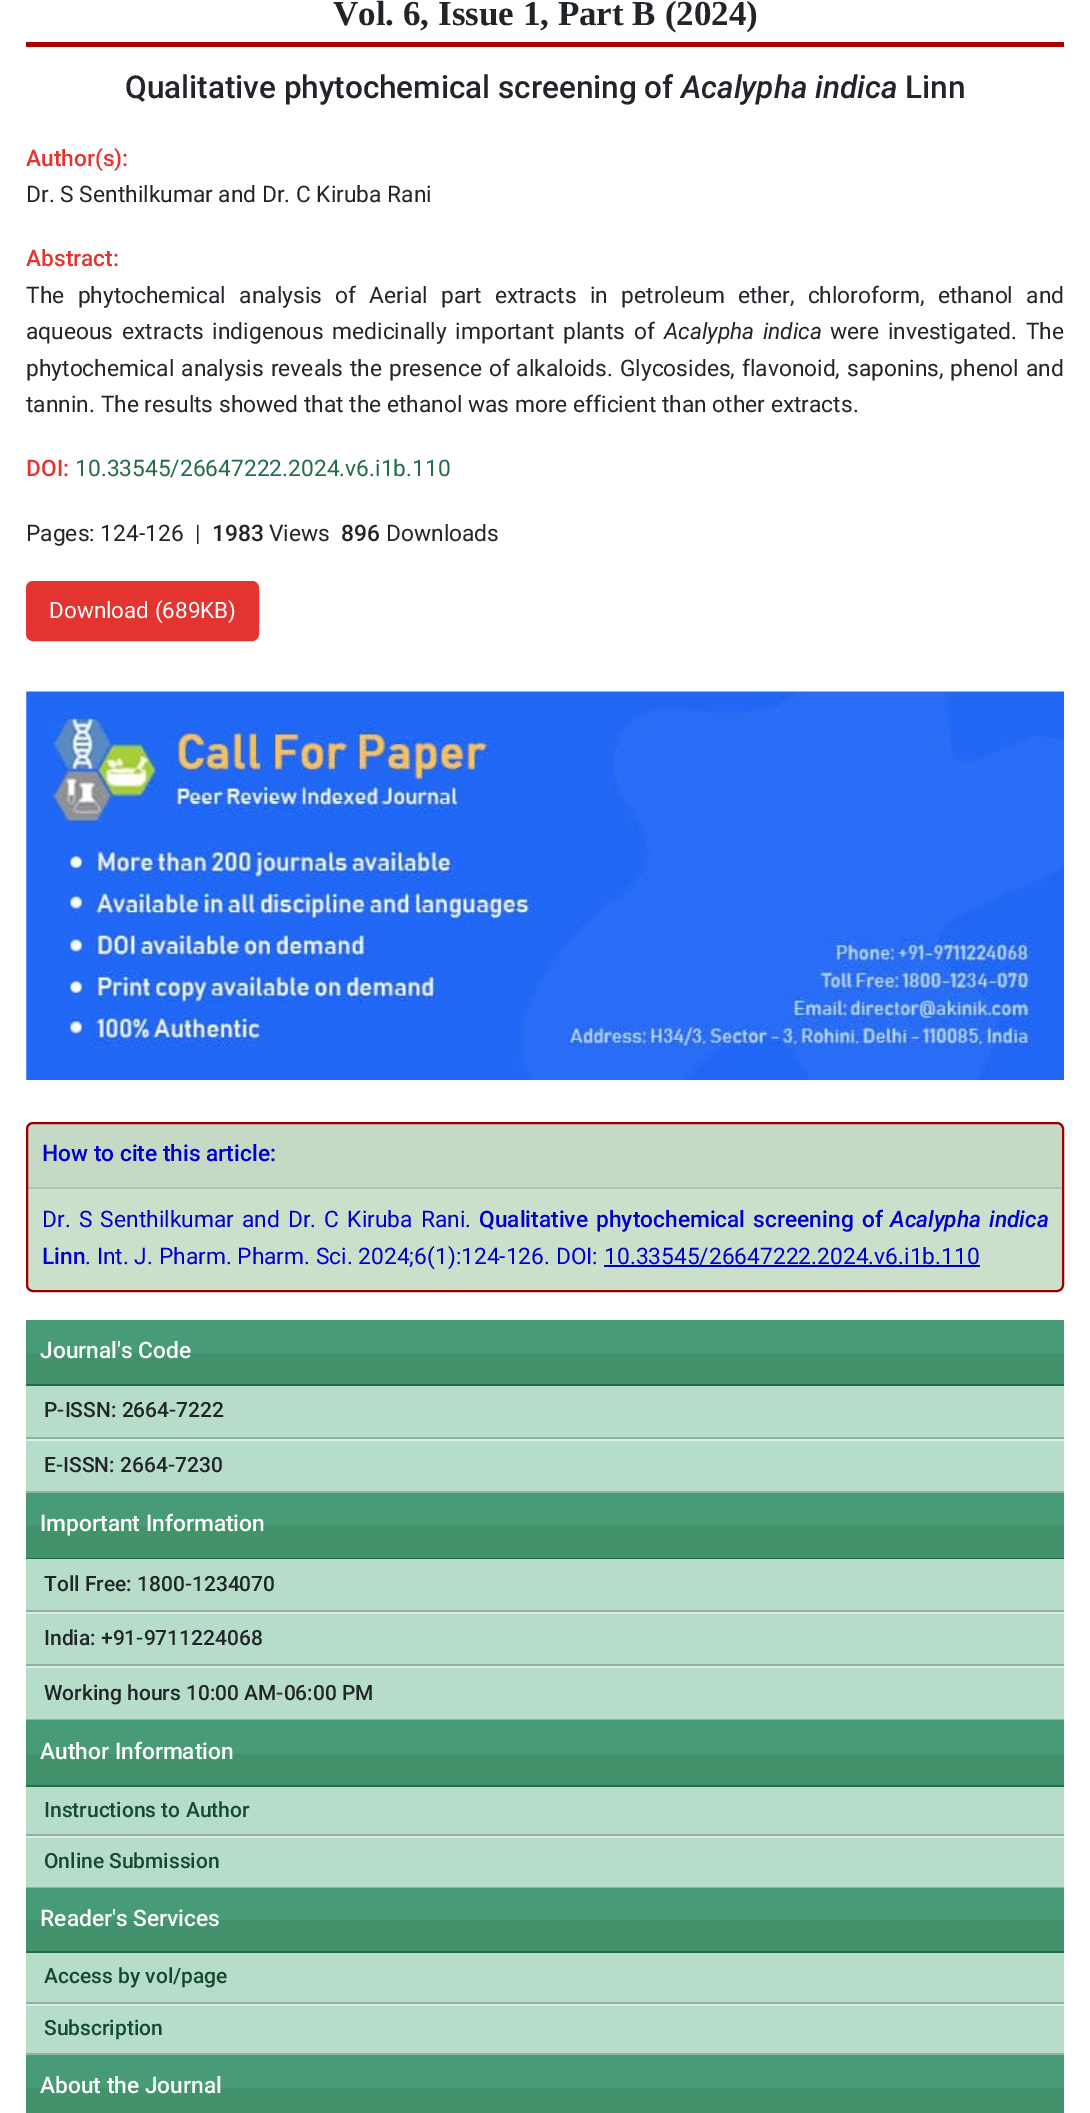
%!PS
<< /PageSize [1090 2113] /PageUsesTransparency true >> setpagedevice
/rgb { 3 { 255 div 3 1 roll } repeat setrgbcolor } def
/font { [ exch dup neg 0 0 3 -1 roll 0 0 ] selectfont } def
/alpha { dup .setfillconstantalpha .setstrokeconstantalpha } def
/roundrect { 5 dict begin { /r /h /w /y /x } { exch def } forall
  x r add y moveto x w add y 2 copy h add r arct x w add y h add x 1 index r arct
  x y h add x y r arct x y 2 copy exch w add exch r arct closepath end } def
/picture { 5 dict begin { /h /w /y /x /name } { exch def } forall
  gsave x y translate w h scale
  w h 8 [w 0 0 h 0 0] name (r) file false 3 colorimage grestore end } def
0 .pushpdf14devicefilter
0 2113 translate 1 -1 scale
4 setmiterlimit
255 255 255 rgb
0 0 1090 2113 rectfill
172 1 1 rgb
26 42 1038 5 rectfill
227 52 47 rgb
27 582 231 58 6 roundrect gsave fill grestore
2 setlinewidth
stroke
(img/1.rgb) 26 691 1038 389 picture
203 224 203 rgb
27 1123 1036 168 6 roundrect gsave fill grestore
153 0 0 rgb
stroke
0.03 alpha
[
  [28 1124 1034 64 0 0 0]
] { aload pop rgb rectfill } forall
0.12 alpha
[
  [28 1187 1034 2 0 0 0]
] { aload pop rgb rectfill } forall
1 alpha
[
  [604 1265 376 2 0 0 204]
  [26 1320 1038 33 71 156 117]
  [26 1353 1038 31 66 146 107]
  [26 1384 1038 2 35 108 72]
  [26 1386 1038 105 182 221 202]
  [26 1437 1038 2 146 177 161]
  [26 1439 1038 2 219 238 229]
  [26 1491 1038 2 146 177 161]
  [26 1493 1038 33 71 156 117]
  [26 1526 1038 32 66 146 107]
  [26 1558 1038 1 35 108 72]
  [26 1559 1038 160 182 221 202]
  [26 1610 1038 2 146 177 161]
  [26 1612 1038 2 219 238 229]
  [26 1664 1038 2 146 177 161]
  [26 1666 1038 2 219 238 229]
  [26 1719 1038 1 146 177 161]
  [26 1720 1038 34 71 156 117]
  [26 1754 1038 31 66 146 107]
  [26 1785 1038 2 35 108 72]
  [26 1787 1038 100 182 221 202]
  [26 1834 1038 2 146 177 161]
  [26 1836 1038 2 219 238 229]
  [26 1887 1038 1 146 177 161]
  [26 1888 1038 32 71 156 117]
  [26 1920 1038 31 66 146 107]
  [26 1951 1038 2 35 108 72]
  [26 1953 1038 100 182 221 202]
  [26 2002 1038 2 146 177 161]
  [26 2004 1038 2 219 238 229]
  [26 2053 1038 2 146 177 161]
  [26 2055 1038 33 71 156 117]
  [26 2088 1038 25 66 146 107]
] { aload pop rgb rectfill } forall
/LiberationSerif-Bold 35 font
33 37 41 rgb
333 25 moveto (Vol. 6, Issue 1, Part B \(2024\)) show
/Roboto-Medium 31.5 font
125 98 moveto (Qualitative phytochemical screening of) show
/Roboto-MediumItalic 31.5 font
681 98 moveto (Acalypha indica) show
/Roboto-Medium 31.5 font
905 98 moveto (Linn) show
/Roboto-Medium 22.75 font
227 52 47 rgb
26 166 moveto (Author\(s\):) show
/Roboto-Regular 22.75 font
33 37 41 rgb
26 202 moveto (Dr. S Senthilkumar and Dr. C Kiruba Rani) show
/Roboto-Medium 22.75 font
227 52 47 rgb
26 266 moveto (Abstract:) show
/Roboto-Regular 22.75 font
33 37 41 rgb
26 303 moveto 7.75 0 32 (The phytochemical analysis of Aerial part extracts in petroleum ether, chloroform, ethanol and) widthshow
26 339 moveto 3 0 32 (aqueous extracts indigenous medicinally important plants of) widthshow
/Roboto-Italic 22.75 font
664 339 moveto 3 0 32 (Acalypha indica) widthshow
/Roboto-Regular 22.75 font
830 339 moveto 3 0 32 (were investigated. The) widthshow
26 376 moveto 1.25 0 32 (phytochemical analysis reveals the presence of alkaloids. Glycosides, flavonoid, saponins, phenol and) widthshow
26 412 moveto (tannin. The results showed that the ethanol was more efficient than other extracts.) show
/Roboto-Medium 22.75 font
227 52 47 rgb
26 476 moveto (DOI:) show
/Roboto-Regular 22.75 font
35 108 72 rgb
75 476 moveto (10.33545/26647222.2024.v6.i1b.110) show
33 37 41 rgb
26 541 moveto (Pages: 124-126  |) show
/Roboto-Medium 22.75 font
212 541 moveto (1983) show
/Roboto-Regular 22.75 font
269 541 moveto (Views) show
/Roboto-Medium 22.75 font
341 541 moveto (896) show
/Roboto-Regular 22.75 font
386 541 moveto (Downloads) show
/Roboto-Regular 22.5 font
255 255 255 rgb
49 618 moveto (Download \(689KB\)) show
/Roboto-Medium 22.75 font
0 0 204 rgb
42 1161 moveto (How to cite this article:) show
/Roboto-Regular 22.75 font
42 1227 moveto 2.5 0 32 (Dr. S Senthilkumar and Dr. C Kiruba Rani.) widthshow
/Roboto-Medium 22.75 font
479 1227 moveto 2.5 0 32 (Qualitative phytochemical screening of) widthshow
/Roboto-MediumItalic 22.75 font
890 1227 moveto 2.5 0 32 (Acalypha indica) widthshow
/Roboto-Medium 22.75 font
42 1264 moveto (Linn) show
/Roboto-Regular 22.75 font
85 1264 moveto (. Int. J. Pharm. Pharm. Sci. 2024;6\(1\):124-126. DOI:) show
604 1264 moveto (10.33545/26647222.2024.v6.i1b.110) show
/Roboto-Medium 22.75 font
255 255 255 rgb
40 1358 moveto (Journal's Code) show
/Roboto-Medium 21 font
33 37 41 rgb
44 1417 moveto (P-ISSN: 2664-7222) show
44 1472 moveto (E-ISSN: 2664-7230) show
/Roboto-Medium 22.75 font
255 255 255 rgb
40 1531 moveto (Important Information) show
/Roboto-Medium 21 font
33 37 41 rgb
[
  [(Toll Free: 1800-1234070) 44 1591]
  [(India: +91-9711224068) 44 1645]
  [(Working hours 10:00 AM-06:00 PM) 44 1700]
] { aload pop moveto show } forall
/Roboto-Medium 22.75 font
255 255 255 rgb
40 1759 moveto (Author Information) show
/Roboto-Medium 21 font
19 74 47 rgb
44 1817 moveto (Instructions to Author) show
44 1868 moveto (Online Submission) show
/Roboto-Medium 22.75 font
255 255 255 rgb
40 1926 moveto (Reader's Services) show
/Roboto-Medium 21 font
19 74 47 rgb
44 1983 moveto (Access by vol/page) show
44 2035 moveto (Subscription) show
/Roboto-Medium 22.75 font
255 255 255 rgb
40 2093 moveto (About the Journal) show
.poppdf14devicefilter showpage
